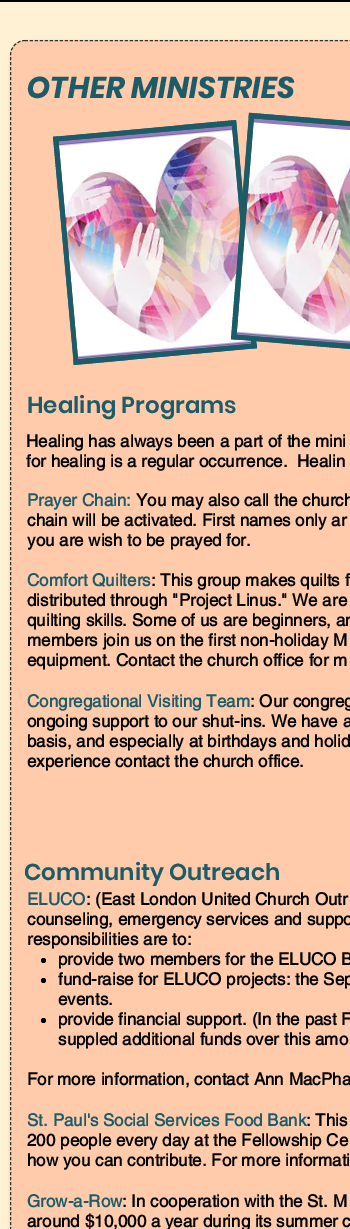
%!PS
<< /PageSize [350 1229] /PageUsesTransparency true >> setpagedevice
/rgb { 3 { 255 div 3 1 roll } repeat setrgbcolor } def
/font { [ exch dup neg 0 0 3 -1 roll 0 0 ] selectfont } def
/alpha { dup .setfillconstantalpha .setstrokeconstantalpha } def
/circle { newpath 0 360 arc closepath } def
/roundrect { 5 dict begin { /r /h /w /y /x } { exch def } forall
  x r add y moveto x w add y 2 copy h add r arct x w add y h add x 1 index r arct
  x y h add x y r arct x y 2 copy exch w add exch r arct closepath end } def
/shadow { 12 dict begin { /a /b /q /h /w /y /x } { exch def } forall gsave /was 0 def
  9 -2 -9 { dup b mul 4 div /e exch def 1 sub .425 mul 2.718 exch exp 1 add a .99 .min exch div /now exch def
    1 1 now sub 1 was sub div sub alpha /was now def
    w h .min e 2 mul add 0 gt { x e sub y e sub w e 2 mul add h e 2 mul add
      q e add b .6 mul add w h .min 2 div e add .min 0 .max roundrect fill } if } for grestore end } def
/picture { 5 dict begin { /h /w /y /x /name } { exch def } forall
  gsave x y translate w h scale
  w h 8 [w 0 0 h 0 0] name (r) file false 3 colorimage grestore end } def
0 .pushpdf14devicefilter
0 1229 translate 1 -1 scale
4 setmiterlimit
255 242 212 rgb
0 0 350 1229 rectfill
0 0 0 rgb
0 0 350 2 rectfill
13 44 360 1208 15 2.5 0.6 shadow
255 203 170 rgb
10 40 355 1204 15 roundrect fill
48 48 48 rgb
[3 2] 0 setdash
25 40.5 moveto 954 40.5 lineto 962 40.5 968.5 47 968.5 55 curveto 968.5 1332 lineto 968.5 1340 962 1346.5 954 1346.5 curveto 25 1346.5 lineto 17 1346.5 10.5 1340 10.5 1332 curveto 10.5 55 lineto 10.5 47 17 40.5 25 40.5 curveto closepath stroke
28 92 105 rgb
53 137 moveto 236 120 lineto 257 348 lineto 74 365 lineto closepath fill
5 setlinewidth
[] 0 setdash
56 139 moveto 234 123 lineto 254 346 lineto 76 362 lineto closepath stroke
(img/1.rgb) 58 125 194 235 picture
249 113 moveto 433 128 lineto 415 354 lineto 231 339 lineto closepath fill
251.5 115.5 moveto 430 130 lineto 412.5 351.5 lineto 234 337 lineto closepath stroke
(img/2.rgb) 236 118 114 226 picture
0 0 0 rgb
43.5 960.5 2.5 circle fill
43.5 980.5 2.5 circle fill
43.5 1020.5 2.5 circle fill
/Poppins-BoldItalic 30 font
28 92 105 rgb
27 98 moveto (OTHER MINISTRIES) show
/Poppins-SemiBold 23 font
27 413 moveto (Healing Programs) show
/helvetica-Bold 17 font
0 0 0 rgb
26 447 moveto (Healing has always been a part of the mini) show
26 467 moveto (for healing is a regular occurrence.  Healin) show
28 92 105 rgb
27 506 moveto (Prayer Chain:) show
0 0 0 rgb
[
  [(You may also call the church) 136 506]
  [(chain will be activated. First names only ar) 27 526]
  [(you are wish to be prayed for.) 27 546]
] { aload pop moveto show } forall
28 92 105 rgb
27 586 moveto (Comfort Quilters) show
0 0 0 rgb
[
  [(: This group makes quilts f) 151 586]
  [(distributed through "Project Linus." We are) 27 606]
  [(quilting skills. Some of us are beginners, an) 27 626]
  [(members join us on the first non-holiday M) 27 646]
  [(equipment. Contact the church office for m) 27 666]
] { aload pop moveto show } forall
28 92 105 rgb
27 707 moveto (Congregational Visiting Team) show
0 0 0 rgb
[
  [(: Our congreg) 250 707]
  [(ongoing support to our shut-ins. We have a) 27 727]
  [(basis, and especially at birthdays and holid) 27 747]
  [(experience contact the church office.) 27 767]
] { aload pop moveto show } forall
/Poppins-SemiBold 23 font
28 92 105 rgb
24 880 moveto (Community Outreach) show
/helvetica-Bold 17 font
27 905 moveto (ELUCO) show
0 0 0 rgb
[
  [(: \(East London United Church Outr) 86 905]
  [(counseling, emergency services and suppo) 27 925]
  [(responsibilities are to:) 27 945]
  [(provide two members for the ELUCO B) 58 965]
  [(fund-raise for ELUCO projects: the Sep) 58 985]
  [(events.) 58 1005]
  [(provide financial support. \(In the past F) 58 1025]
  [(suppled additional funds over this amo) 58 1045]
  [(For more information, contact Ann MacPha) 27 1085]
] { aload pop moveto show } forall
28 92 105 rgb
27 1126 moveto (St. Paul's Social Services Food Bank) show
0 0 0 rgb
[
  [(: This) 306 1126]
  [(200 people every day at the Fellowship Ce) 27 1146]
  [(how you can contribute. For more informati) 27 1166]
] { aload pop moveto show } forall
28 92 105 rgb
27 1207 moveto (Grow-a-Row) show
0 0 0 rgb
122 1207 moveto (: In cooperation with the St. M) show
27 1227 moveto (around $10,000 a year during its summer c) show
.poppdf14devicefilter showpage
